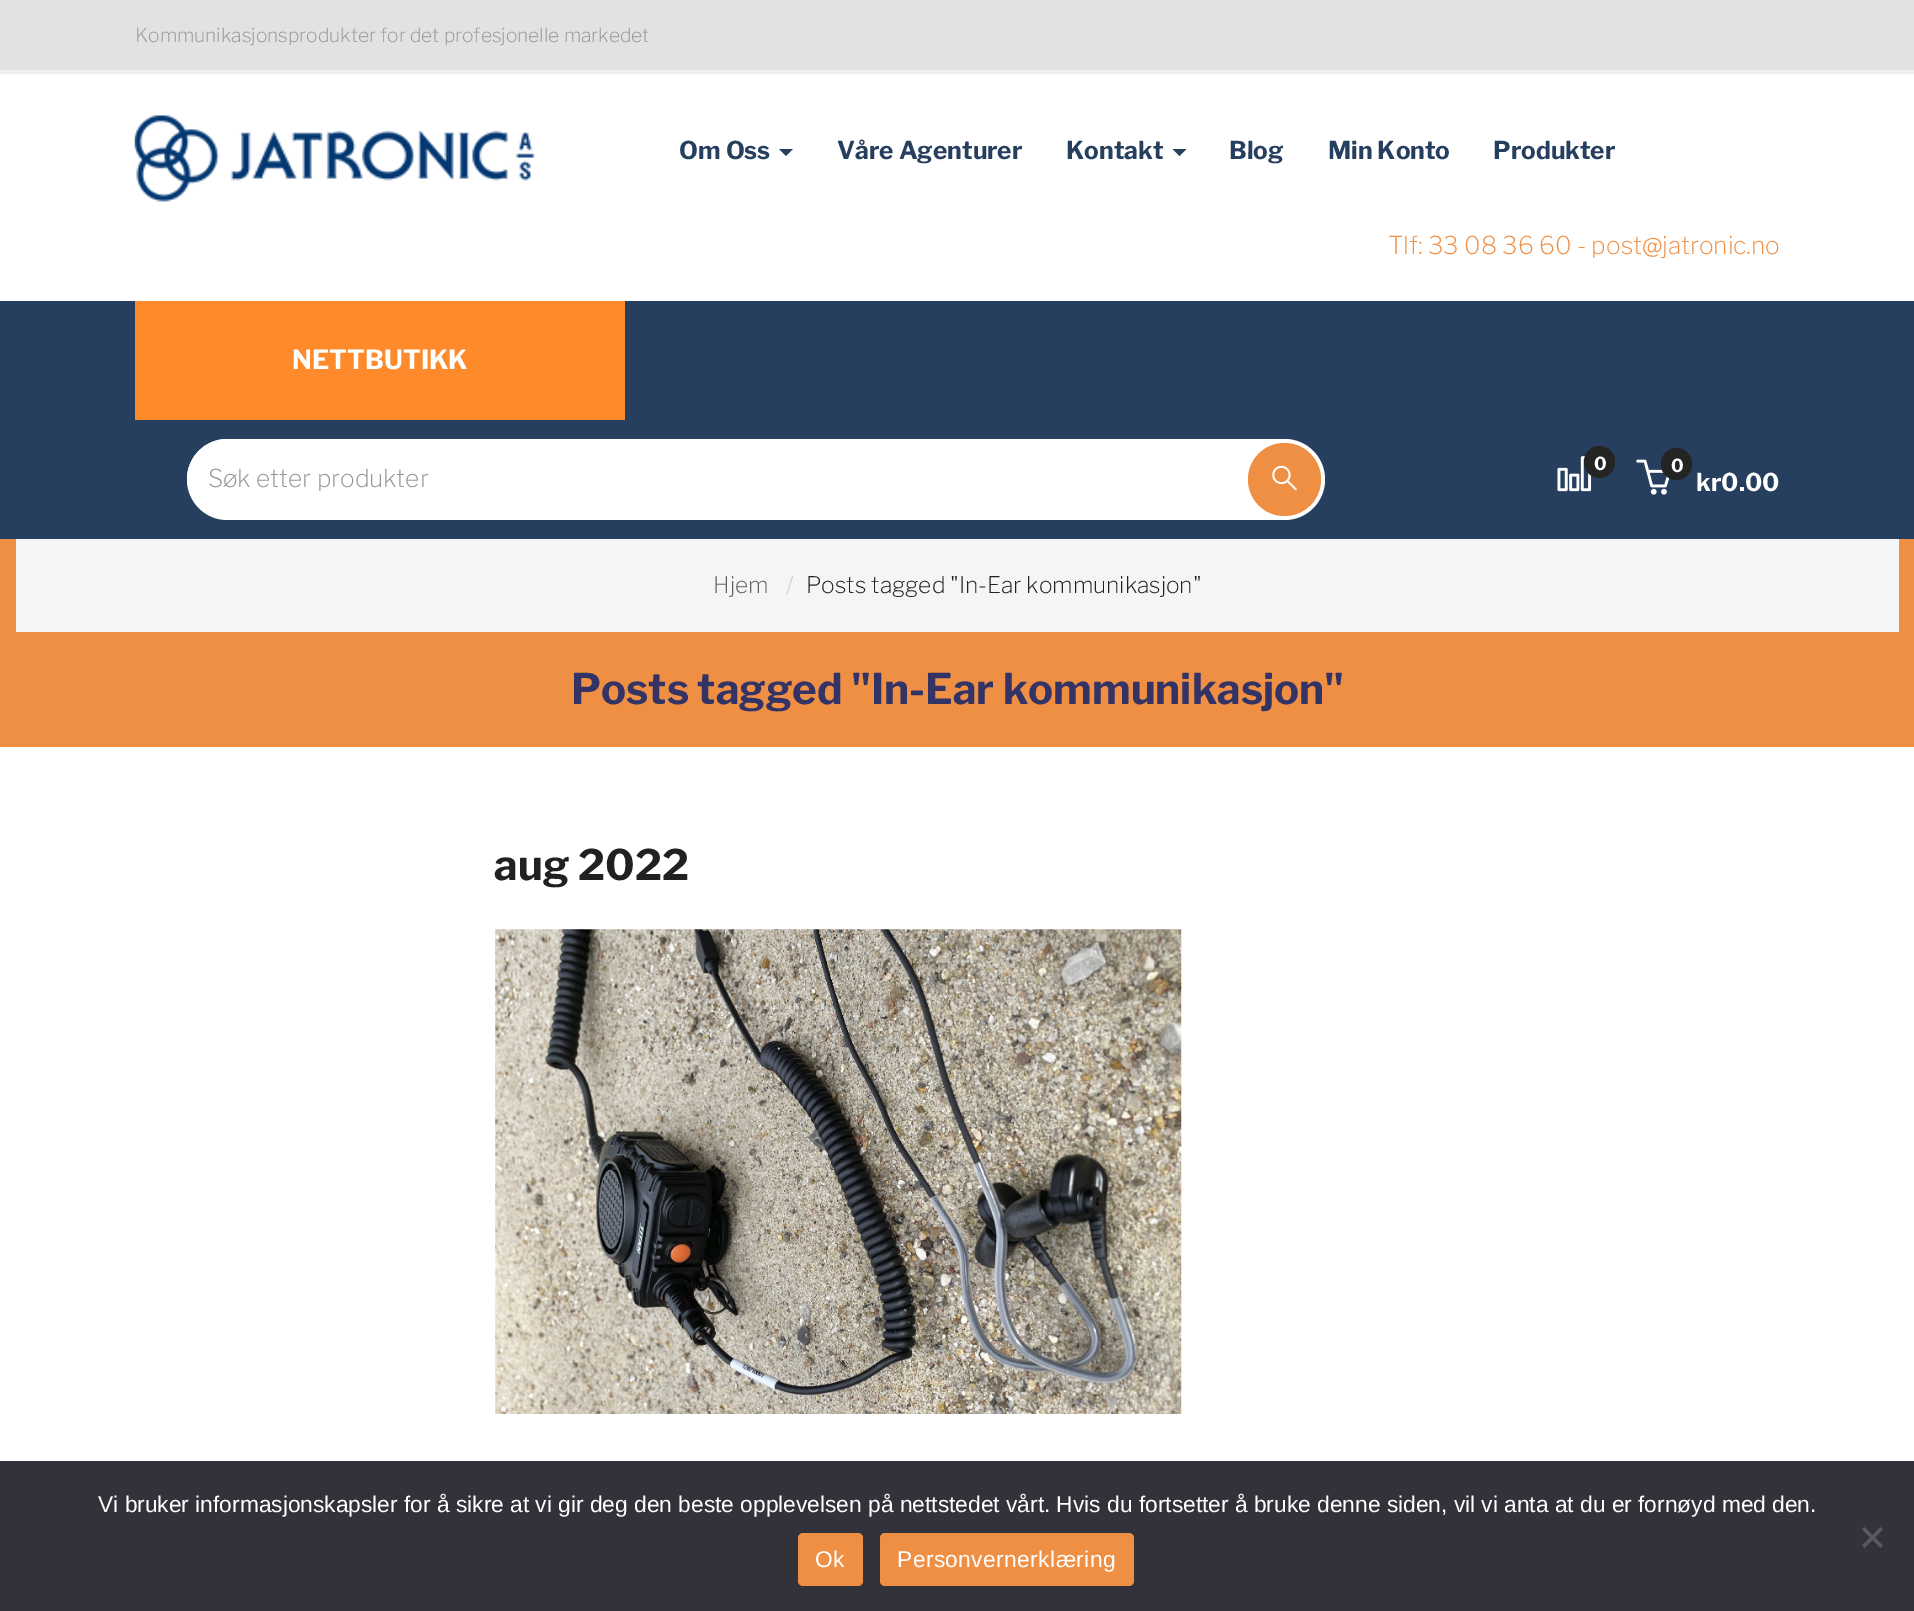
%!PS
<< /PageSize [1914 1611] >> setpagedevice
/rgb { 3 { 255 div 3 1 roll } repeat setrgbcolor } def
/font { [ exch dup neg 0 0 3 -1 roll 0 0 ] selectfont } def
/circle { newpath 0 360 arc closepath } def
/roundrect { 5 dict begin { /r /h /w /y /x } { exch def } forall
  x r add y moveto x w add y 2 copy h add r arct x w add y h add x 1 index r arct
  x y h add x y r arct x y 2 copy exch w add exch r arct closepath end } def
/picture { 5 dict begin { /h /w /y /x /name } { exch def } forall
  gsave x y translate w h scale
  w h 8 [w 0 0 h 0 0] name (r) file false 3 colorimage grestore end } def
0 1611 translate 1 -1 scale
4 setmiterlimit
255 255 255 rgb
0 0 1914 1611 rectfill
226 226 226 rgb
0 0 1914 70 rectfill
238 238 238 rgb
0 70 1914 4 rectfill
(img/1.rgb) 134 115 401 87 picture
39 63 95 rgb
779 149 moveto 793 149 lineto 786 156 lineto closepath fill
1172.5 149 moveto 1186.5 149 lineto 1179.5 156 lineto closepath fill
0 301 1914 238 rectfill
254 138 44 rgb
135 301 490 119 rectfill
255 255 255 rgb
187 439 1138 81 40.5 roundrect fill
gsave
187 439 1138 81 40.5 roundrect clip newpath
227.5 439 moveto 1244 439 lineto 1244 516 lineto 225.5 516 lineto 204 516 187 499 187 477.5 curveto 187 479.5 lineto 187 457 205 439 227.5 439 curveto closepath fill
grestore
239 143 68 rgb
1284.5 479.5 36.5 circle fill
(img/2.rgb) 1272 465 25 26 picture
(img/3.rgb) 1557 456 35 36 picture
36 36 36 rgb
1584 446 31 32 15.5 roundrect fill
(img/4.rgb) 1636 459 34 36 picture
1661 448 31 32 15.5 roundrect fill
239 143 68 rgb
0 539 1914 208 rectfill
245 245 245 rgb
16 539 1883 93 rectfill
(img/5.rgb) 495 929 687 485 picture
50 50 58 rgb
0 1461 1914 150 rectfill
89 89 93 rgb
1880.5 1527 moveto 1883 1529.5 lineto 1864.5 1548 lineto 1862 1545.5 lineto closepath fill
1862 1529.5 moveto 1864.5 1527 lineto 1883 1545.5 lineto 1880.5 1548 lineto closepath fill
239 143 68 rgb
798 1533 65 53 5 roundrect fill
880 1533 254 53 5 roundrect fill
/LibreFranklin-ExtraLight 19.25 font
150 150 150 rgb
135 42 moveto (Kommunikasjonsprodukter for det profesjonelle markedet) show
/LibreFranklin-Bold 24.5 font
39 63 95 rgb
[
  [(Om Oss) 679 159]
  [(Våre Agenturer) 837 159]
  [(Kontakt) 1066 159]
  [(Blog) 1229 159]
  [(Min Konto) 1328 159]
  [(Produkter) 1493 159]
] { aload pop moveto show } forall
/LibreFranklin-ExtraLight 24.5 font
239 143 68 rgb
1388 254 moveto (Tlf: 33 08 36 60 - post@jatronic.no) show
/LibreFranklin-Bold 26.25 font
255 255 255 rgb
292 369 moveto (NETTBUTIKK) show
/LibreFranklin-ExtraLight 24.5 font
150 150 150 rgb
208 487 moveto (Søk etter produkter) show
/LibreFranklin-Bold 18 font
255 255 255 rgb
1594 470 moveto (0) show
1671 472 moveto (0) show
/LibreFranklin-Bold 24.5 font
1696 491 moveto (kr0.00) show
/LibreFranklin-ExtraLight 22.75 font
97 97 97 rgb
713 593 moveto (Hjem) show
204 204 204 rgb
786 593 moveto (/) show
33 33 33 rgb
806 593 moveto (Posts tagged "In-Ear kommunikasjon") show
/LibreFranklin-Bold 42 font
51 51 102 rgb
571 704 moveto (Posts tagged "In-Ear kommunikasjon") show
33 33 33 rgb
494 880 moveto (aug 2022) show
/LiberationSans-Regular 22.75 font
255 255 255 rgb
98 1512 moveto (Vi bruker informasjonskapsler for å sikre at vi gir deg den beste opplevelsen på nettstedet vårt. Hvis du fortsetter å bruke denne siden, vil vi anta at du er fornøyd med den.) show
815 1567 moveto 0.4 0 (Ok) ashow
897 1567 moveto 0.4 0 (Personvernerklæring) ashow
showpage
